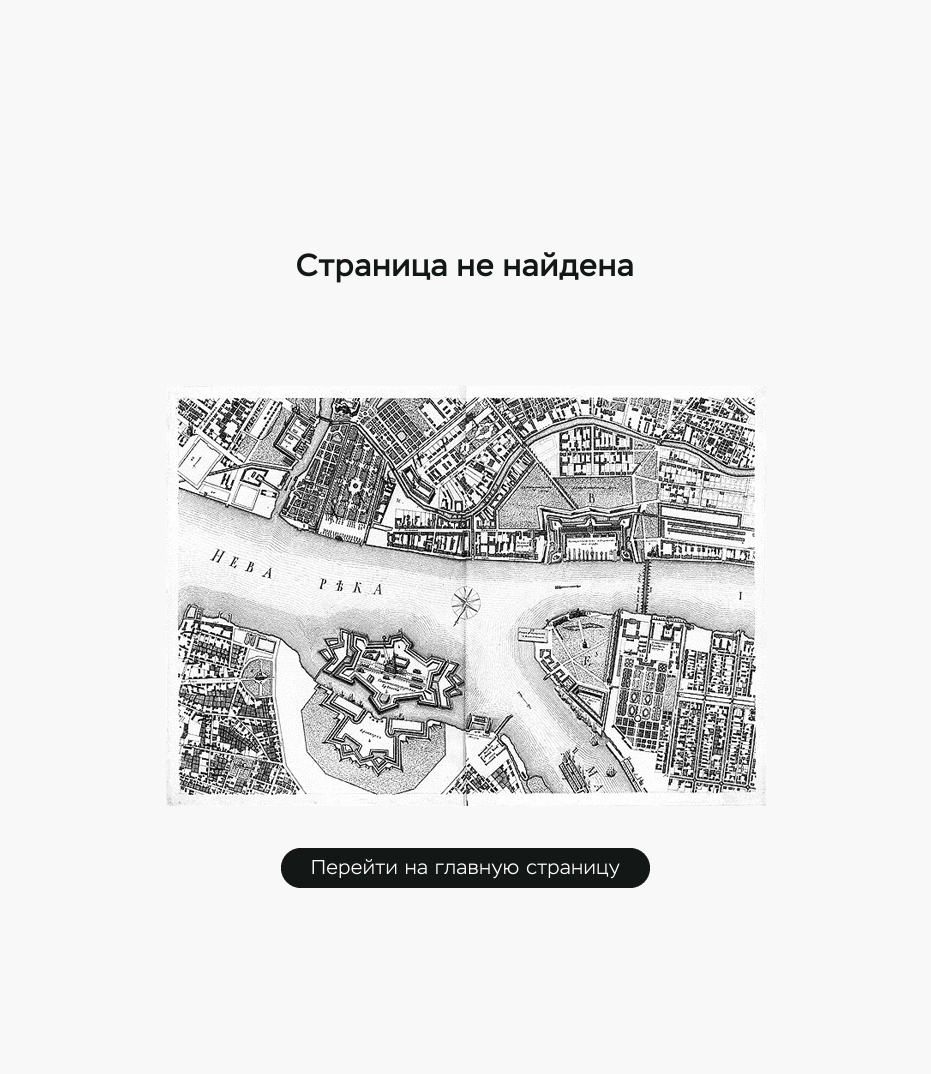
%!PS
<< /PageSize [931 1074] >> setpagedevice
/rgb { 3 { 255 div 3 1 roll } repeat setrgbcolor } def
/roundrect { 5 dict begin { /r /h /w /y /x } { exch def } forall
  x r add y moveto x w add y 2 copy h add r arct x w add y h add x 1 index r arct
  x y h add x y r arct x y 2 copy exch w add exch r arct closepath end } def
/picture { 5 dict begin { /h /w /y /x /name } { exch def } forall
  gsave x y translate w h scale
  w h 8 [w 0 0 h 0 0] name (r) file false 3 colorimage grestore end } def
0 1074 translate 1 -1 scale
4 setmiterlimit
248 248 249 rgb
0 0 931 1074 rectfill
(img/1.rgb) 297 252 336 31 picture
(img/2.rgb) 166 386 600 420 picture
19 24 22 rgb
281 848 369 40 20 roundrect fill
(img/3.rgb) 312 859 308 20 picture
showpage
